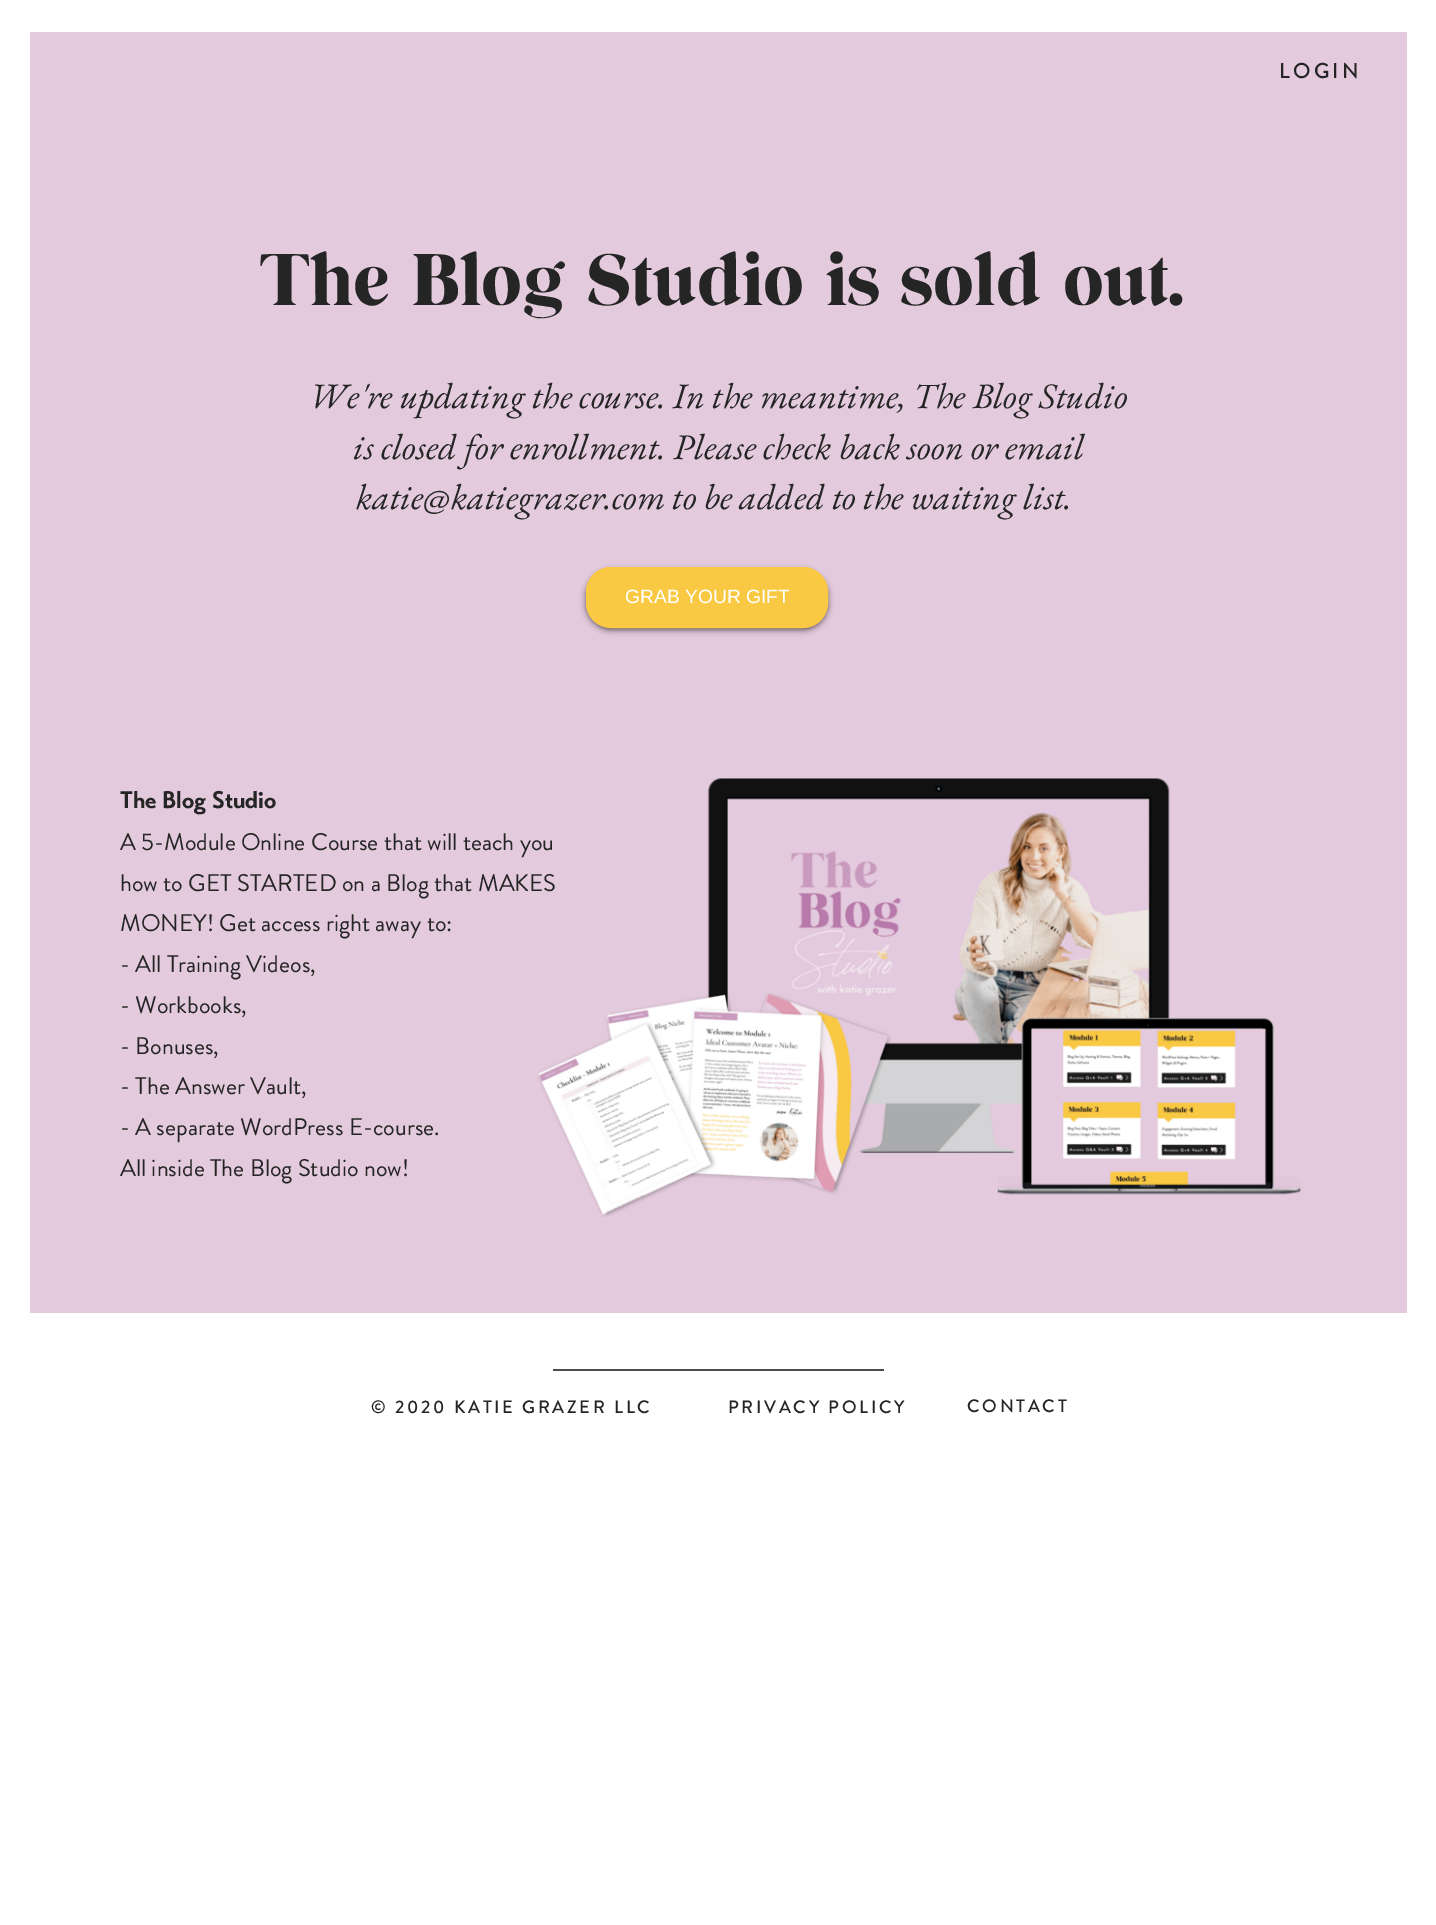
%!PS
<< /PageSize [1436 1925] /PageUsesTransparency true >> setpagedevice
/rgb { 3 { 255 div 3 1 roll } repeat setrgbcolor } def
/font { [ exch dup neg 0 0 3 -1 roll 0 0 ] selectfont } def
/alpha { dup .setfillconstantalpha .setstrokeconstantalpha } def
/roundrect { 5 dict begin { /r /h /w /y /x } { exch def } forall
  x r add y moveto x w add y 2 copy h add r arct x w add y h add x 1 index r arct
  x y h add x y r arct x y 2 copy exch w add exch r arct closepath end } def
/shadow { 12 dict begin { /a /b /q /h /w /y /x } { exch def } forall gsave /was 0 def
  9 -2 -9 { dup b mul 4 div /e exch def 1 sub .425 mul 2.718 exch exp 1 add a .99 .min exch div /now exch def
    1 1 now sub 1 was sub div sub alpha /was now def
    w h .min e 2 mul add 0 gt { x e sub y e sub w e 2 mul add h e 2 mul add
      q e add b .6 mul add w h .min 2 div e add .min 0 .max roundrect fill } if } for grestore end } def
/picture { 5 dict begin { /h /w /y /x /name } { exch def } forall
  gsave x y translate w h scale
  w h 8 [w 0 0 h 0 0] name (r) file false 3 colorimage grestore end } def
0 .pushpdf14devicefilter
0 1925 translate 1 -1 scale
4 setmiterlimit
255 255 255 rgb
0 0 1436 1925 rectfill
227 202 221 rgb
30 32 1377 1281 rectfill
0 0 0 rgb
586 571 242 59 25 3 0.6 shadow
250 201 67 rgb
586.5 567.5 241 60 24.5 roundrect gsave fill grestore
stroke
(img/1.rgb) 537 778 765 439 picture
74 77 79 rgb
553 1369 331 2 rectfill
/BrandonGrotesque-Medium 21.5 font
37 37 37 rgb
1279 78 moveto 3.25 0 (LOGIN) ashow
/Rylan-Regular 71.8 font
260 305 moveto (The Blog Studio is sold out.) show
/EBGaramond-Italic 35.9 font
[
  [(We're updating the course. In the meantime, The Blog Studio) 309 408]
  [(is closed for enrollment. Please check back soon or email) 353 459]
  [(katie@katiegrazer.com to be added to the waiting list.) 356 509]
] { aload pop moveto show } forall
/LiberationSans-Regular 19.25 font
255 255 255 rgb
625 603 moveto (GRAB YOUR GIFT) show
/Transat-Bold 24 font
37 37 37 rgb
120 808 moveto (The Blog Studio) show
/BrandonGrotesque-Regular 24 font
[
  [(A 5-Module Online Course that will teach you) 120 850]
  [(how to GET STARTED on a Blog that MAKES) 120 891]
  [(MONEY! Get access right away to:) 120 931]
  [(- All Training Videos,) 120 972]
  [(- Workbooks,) 120 1013]
  [(- Bonuses,) 120 1054]
  [(- The Answer Vault,) 120 1094]
  [(- A separate WordPress E-course.) 120 1135]
  [(All inside The Blog Studio now!) 120 1176]
] { aload pop moveto show } forall
/BrandonGrotesque-Medium 18 font
371 1413 moveto 2.7 0 (© 2020 KATIE GRAZER LLC) ashow
728 1413 moveto 2.7 0 (PRIVACY POLICY) ashow
967 1412 moveto 2.7 0 (CONTACT) ashow
.poppdf14devicefilter showpage
